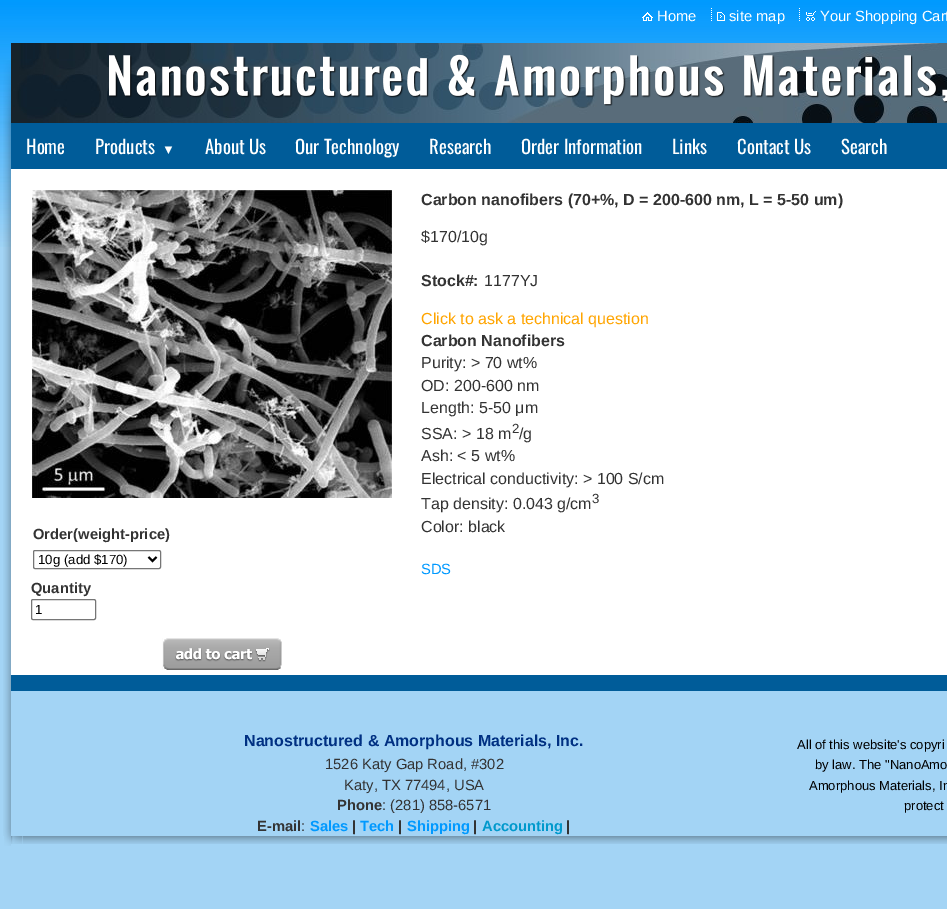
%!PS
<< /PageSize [947 909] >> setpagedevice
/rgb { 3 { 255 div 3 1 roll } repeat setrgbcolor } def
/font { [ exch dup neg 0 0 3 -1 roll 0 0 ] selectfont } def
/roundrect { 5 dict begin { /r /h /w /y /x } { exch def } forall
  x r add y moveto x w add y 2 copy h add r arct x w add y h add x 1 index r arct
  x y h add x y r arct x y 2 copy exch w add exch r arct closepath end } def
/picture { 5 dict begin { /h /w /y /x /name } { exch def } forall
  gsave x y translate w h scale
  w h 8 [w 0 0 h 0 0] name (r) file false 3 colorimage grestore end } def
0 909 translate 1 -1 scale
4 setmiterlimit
163 212 245 rgb
0 0 947 909 rectfill
(img/1.rgb) 0 0 947 247 picture
(img/2.rgb) 642 12 11 9 picture
(img/3.rgb) 711 8 1 13 picture
(img/4.rgb) 717 12 8 9 picture
(img/3.rgb) 799 8 1 13 picture
(img/5.rgb) 806 11 10 10 picture
(img/6.rgb) 3 60 8 63 picture
(img/7.rgb) 11 43 936 80 picture
(img/8.rgb) 109 54 838 52 picture
(img/9.rgb) 3 123 8 552 picture
255 255 255 rgb
11 169 936 506 rectfill
0 92 153 rgb
11 123 936 46 rectfill
(img/10.rgb) 32 190 360 308 picture
118 118 118 rgb
33.5 550.5 127 18 1.5 roundrect stroke
0 0 0 rgb
2 setlinewidth
148.5 557 moveto 152.5 561 lineto 156.5 557 lineto stroke
118 118 118 rgb
1 setlinewidth
31.5 599.5 64 20 1.5 roundrect stroke
(img/11.rgb) 162 638 120 32 picture
(img/12.rgb) 3 675 8 161 picture
0 92 153 rgb
11 675 936 16 rectfill
(img/13.rgb) 4 836 7 10 picture
(img/14.rgb) 11 836 12 8 picture
(img/15.rgb) 23 836 924 8 picture
/LiberationSans-Regular 14.75 font
255 255 255 rgb
[
  [(Home) 657 21]
  [(site map) 729 21]
  [(Your Shopping Cart) 820 21]
] { aload pop moveto show } forall
/Oswald-Regular 18.75 font
26 154 moveto (Home) show
95 154 moveto (Products) show
/LiberationSans-Regular 13 font
162 154 moveto (▼) show
/Oswald-Regular 18.75 font
[
  [(About Us) 205 154]
  [(Our Technology) 295 154]
  [(Research) 429 154]
  [(Order Information) 521 154]
  [(Links) 672 154]
  [(Contact Us) 737 154]
  [(Search) 841 154]
] { aload pop moveto show } forall
/LiberationSans-Bold 14.75 font
51 51 51 rgb
33 539 moveto (Order\(weight-price\)) show
/LiberationSans-Regular 13.25 font
0 0 0 rgb
38 564 moveto (10g \(add $170\)) show
/LiberationSans-Bold 14.75 font
51 51 51 rgb
31 593 moveto (Quantity) show
/LiberationSans-Regular 13.25 font
0 0 0 rgb
35 614 moveto (1) show
/LiberationSans-Bold 16 font
51 51 51 rgb
421 205 moveto (Carbon nanofibers \(70+%, D = 200-600 nm, L = 5-50 um\)) show
/LiberationSans-Regular 16 font
421 242 moveto ($170/10g) show
/LiberationSans-Bold 16 font
421 286 moveto (Stock#:) show
/LiberationSans-Regular 16 font
484 286 moveto (1177YJ) show
255 165 0 rgb
421 324 moveto (Click to ask a technical question) show
/LiberationSans-Bold 16 font
51 51 51 rgb
421 346 moveto (Carbon Nanofibers) show
/LiberationSans-Regular 16 font
[
  [(Purity: > 70 wt%) 421 368]
  [(OD: 200-600 nm) 421 391]
  [(Length: 5-50 μm) 421 413]
  [(SSA: > 18 m) 421 439]
] { aload pop moveto show } forall
/LiberationSans-Regular 13.25 font
512 433 moveto (2) show
/LiberationSans-Regular 16 font
[
  [(/g) 519 439]
  [(Ash: < 5 wt%) 421 461]
  [(Electrical conductivity: > 100 S/cm) 421 484]
  [(Tap density: 0.043 g/cm) 421 509]
] { aload pop moveto show } forall
/LiberationSans-Regular 13.25 font
592 503 moveto (3) show
/LiberationSans-Regular 16 font
421 532 moveto (Color: black) show
/LiberationSans-Regular 14.75 font
0 153 255 rgb
421 574 moveto (SDS) show
/LiberationSans-Bold 16 font
0 48 130 rgb
244 746 moveto (Nanostructured & Amorphous Materials, Inc.) show
/LiberationSans-Regular 14.75 font
51 51 51 rgb
325 769 moveto (1526 Katy Gap Road, #302) show
344 790 moveto (Katy, TX 77494, USA) show
/LiberationSans-Bold 14.75 font
337 810 moveto (Phone) show
/LiberationSans-Regular 14.75 font
382 810 moveto (: \(281\) 858-6571) show
/LiberationSans-Bold 14.75 font
257 831 moveto (E-mail) show
/LiberationSans-Regular 14.75 font
301 831 moveto (:) show
/LiberationSans-Bold 14.75 font
0 153 255 rgb
310 831 moveto (Sales) show
51 51 51 rgb
352 831 moveto (|) show
0 153 255 rgb
360 831 moveto (Tech) show
51 51 51 rgb
398 831 moveto (|) show
0 153 255 rgb
407 831 moveto (Shipping) show
51 51 51 rgb
473 831 moveto (|) show
0 153 204 rgb
482 831 moveto (Accounting) show
51 51 51 rgb
566 831 moveto (|) show
/LiberationSans-Regular 13 font
0 0 0 rgb
[
  [(All of this website's copyri) 797 749]
  [(by law. The "NanoAmo) 815 769]
  [(Amorphous Materials, In) 809 790]
  [(protect) 904 810]
] { aload pop moveto show } forall
showpage
